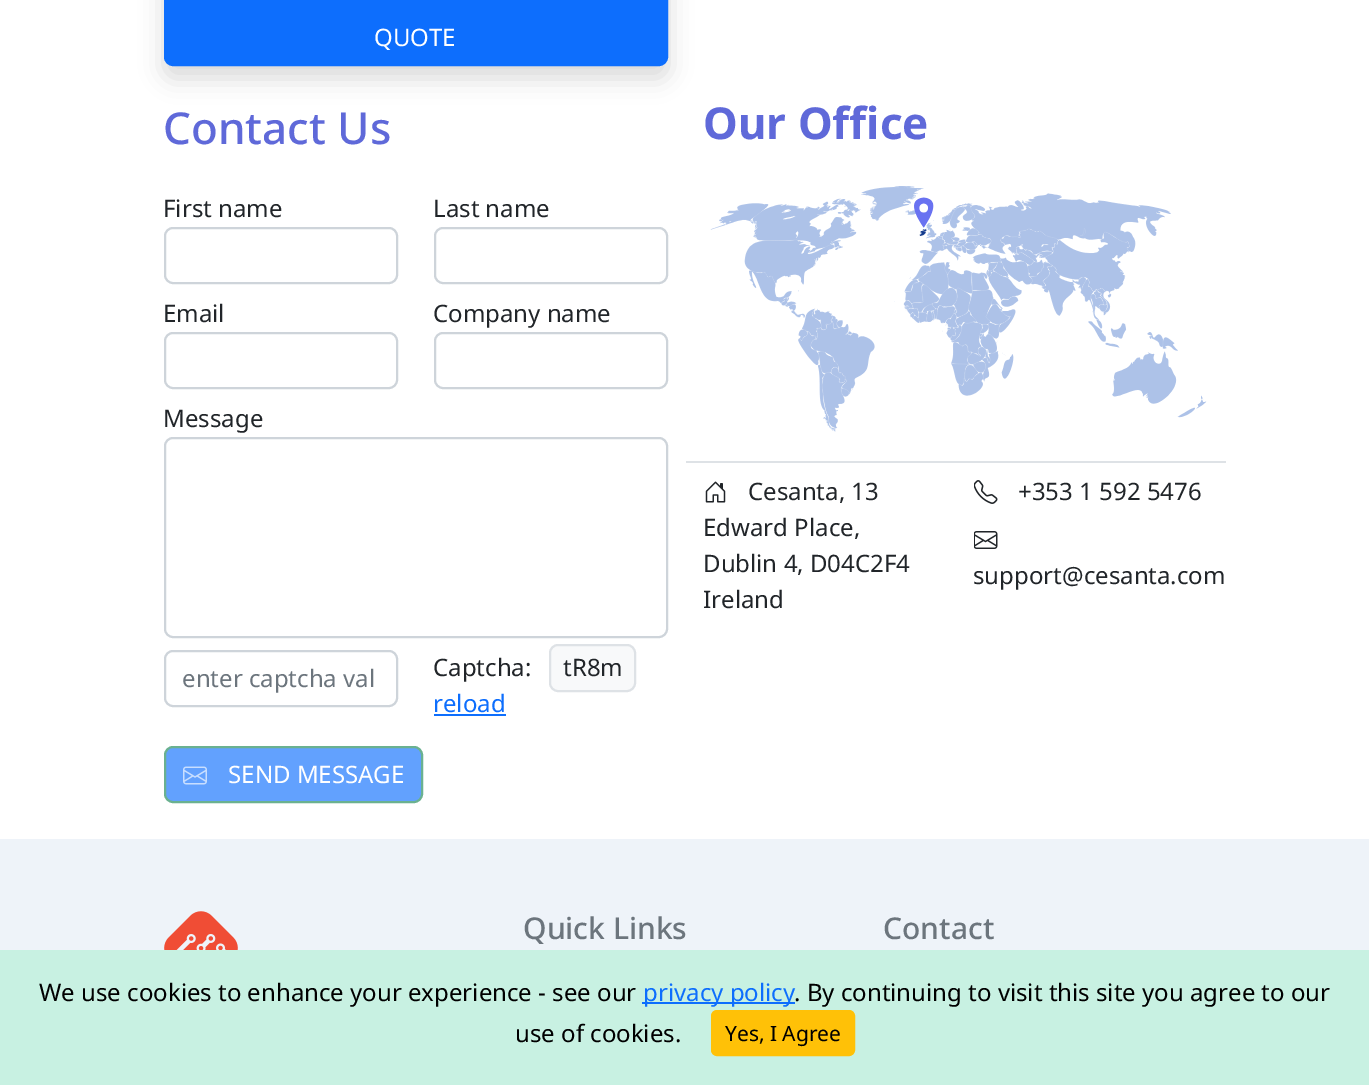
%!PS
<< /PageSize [1369 1085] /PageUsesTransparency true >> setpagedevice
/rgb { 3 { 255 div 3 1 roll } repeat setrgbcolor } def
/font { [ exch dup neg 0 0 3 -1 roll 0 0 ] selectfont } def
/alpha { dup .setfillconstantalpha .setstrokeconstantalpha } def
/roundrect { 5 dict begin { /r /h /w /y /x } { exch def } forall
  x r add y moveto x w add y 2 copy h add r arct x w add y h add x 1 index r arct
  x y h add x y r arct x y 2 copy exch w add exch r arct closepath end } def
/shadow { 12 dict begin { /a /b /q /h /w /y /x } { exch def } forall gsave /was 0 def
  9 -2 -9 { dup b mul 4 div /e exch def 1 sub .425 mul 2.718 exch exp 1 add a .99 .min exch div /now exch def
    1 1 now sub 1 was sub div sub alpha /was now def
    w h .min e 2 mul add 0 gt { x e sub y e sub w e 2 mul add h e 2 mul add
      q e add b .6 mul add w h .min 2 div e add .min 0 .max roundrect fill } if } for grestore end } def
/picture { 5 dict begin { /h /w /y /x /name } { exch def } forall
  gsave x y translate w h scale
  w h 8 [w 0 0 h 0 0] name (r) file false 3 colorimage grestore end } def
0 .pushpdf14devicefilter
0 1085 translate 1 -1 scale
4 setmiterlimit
255 255 255 rgb
0 0 1369 1085 rectfill
0 0 0 rgb
164 -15 504 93 9 12 0.15 shadow
13 110 253 rgb
165 -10 502 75 8 roundrect gsave fill grestore
2 setlinewidth
stroke
206 212 218 rgb
165 228 232 55 8 roundrect stroke
435 228 232 55 8 roundrect stroke
165 333 232 55 8 roundrect stroke
435 333 232 55 8 roundrect stroke
165 438 502 199 8 roundrect stroke
165 651 232 55 8 roundrect stroke
248 249 250 rgb
550 645 85 46 8 roundrect gsave fill grestore
222 226 230 rgb
stroke
13 110 253 rgb
434 714 72 2 rectfill
98 161 254 rgb
165 747 257 55 8 roundrect gsave fill grestore
106 177 144 rgb
stroke
(img/1.rgb) 183 766 24 19 picture
(img/2.rgb) 710 186 497 246 picture
222 226 230 rgb
686 461 540 2 rectfill
(img/3.rgb) 705 481 21 22 picture
(img/4.rgb) 974 480 24 24 picture
(img/5.rgb) 974 531 24 18 picture
238 243 249 rgb
0 839 1369 111 rectfill
(img/6.rgb) 164 911 74 39 picture
200 241 226 rgb
0 950 1369 135 rectfill
13 110 253 rgb
642 1002 153 2 rectfill
255 193 7 rgb
712 1011 142 44 5 roundrect gsave fill grestore
stroke
/NotoSans-Regular 24 font
255 255 255 rgb
374 46 moveto (QUOTE) show
/NotoSans-Medium 44 font
95 105 217 rgb
163 144 moveto (Contact Us) show
/NotoSans-Regular 24 font
33 37 41 rgb
[
  [(First name) 163 217]
  [(Last name) 433 217]
  [(Email) 163 322]
  [(Company name) 433 322]
  [(Message) 163 427]
] { aload pop moveto show } forall
108 117 125 rgb
182 687 moveto (enter captcha val) show
33 37 41 rgb
433 676 moveto (Captcha:) show
563 676 moveto (tR8m) show
13 110 253 rgb
433 712 moveto (reload) show
255 255 255 rgb
228 783 moveto (SEND MESSAGE) show
/NotoSans-Bold 44 font
95 105 217 rgb
703 139 moveto (Our Office) show
/NotoSans-Regular 24 font
33 37 41 rgb
[
  [(Cesanta, 13) 748 500]
  [(Edward Place,) 703 536]
  [(Dublin 4, D04C2F4) 703 572]
  [(Ireland) 703 608]
  [(+353 1 592 5476) 1018 500]
  [(support@cesanta.com) 973 584]
] { aload pop moveto show } forall
/NotoSans-Medium 30 font
108 117 125 rgb
523 939 moveto (Quick Links) show
883 939 moveto (Contact) show
/NotoSans-Regular 24 font
0 0 0 rgb
39 1001 moveto (We use cookies to enhance your experience - see our) show
13 110 253 rgb
643 1001 moveto (privacy policy) show
0 0 0 rgb
794 1001 moveto (. By continuing to visit this site you agree to our) show
515 1042 moveto (use of cookies.) show
/NotoSans-Regular 21 font
725 1041 moveto (Yes, I Agree) show
.poppdf14devicefilter showpage
